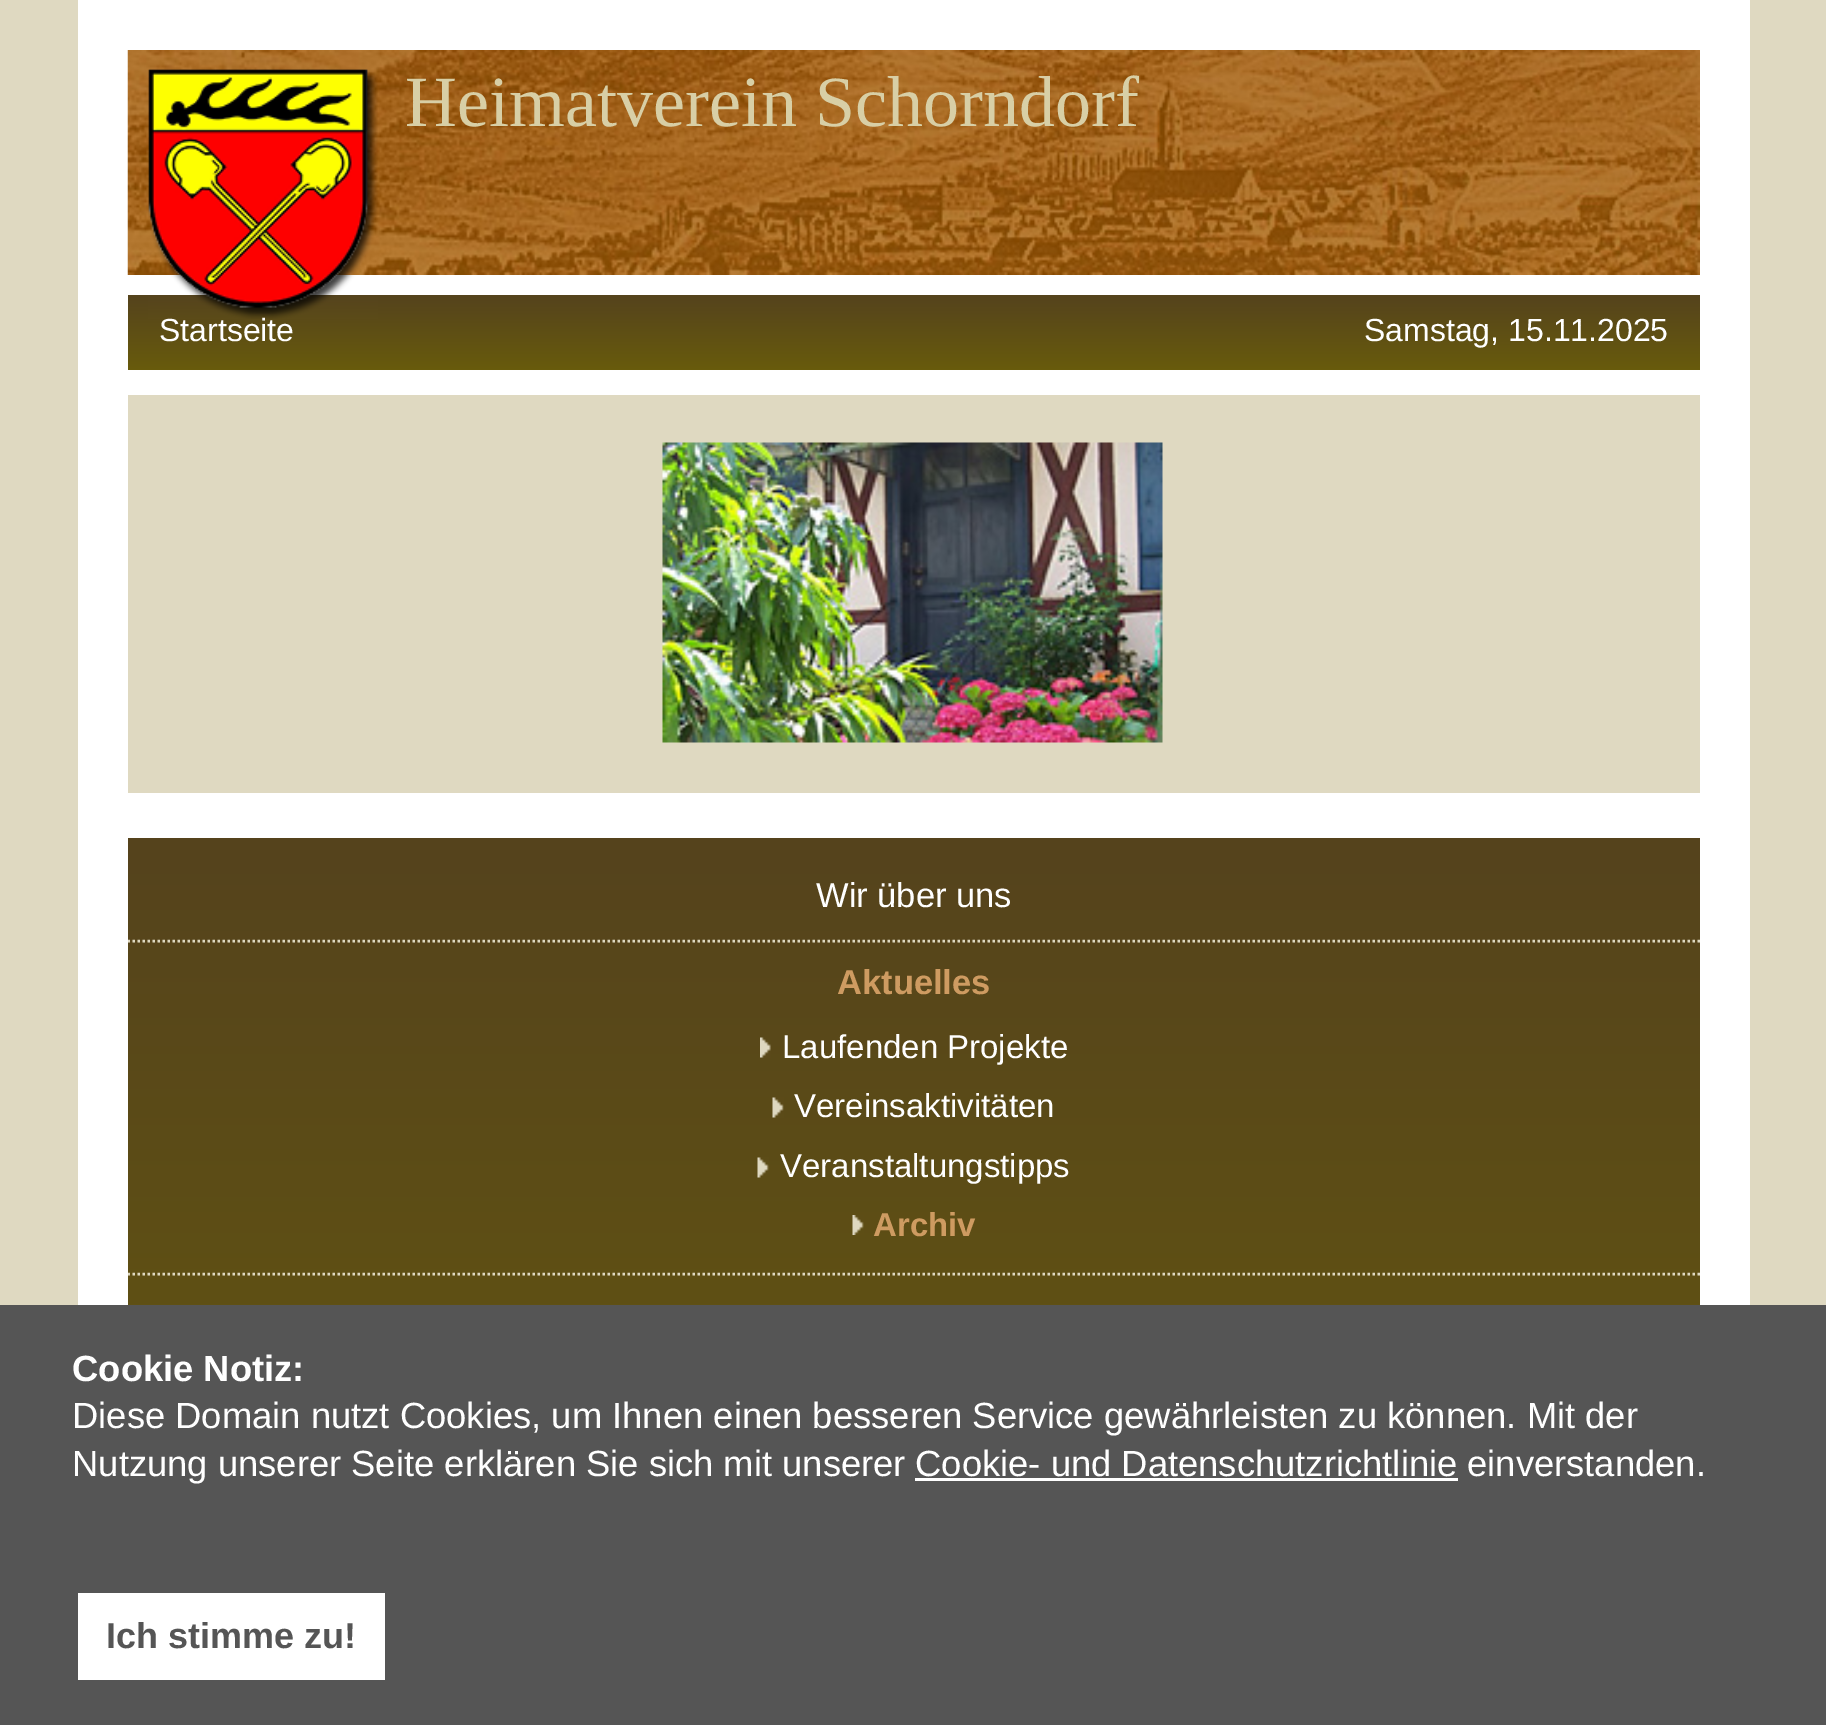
%!PS
<< /PageSize [1826 1725] >> setpagedevice
/rgb { 3 { 255 div 3 1 roll } repeat setrgbcolor } def
/font { [ exch dup neg 0 0 3 -1 roll 0 0 ] selectfont } def
/picture { 5 dict begin { /h /w /y /x /name } { exch def } forall
  gsave x y translate w h scale
  w h 8 [w 0 0 h 0 0] name (r) file false 3 colorimage grestore end } def
0 1725 translate 1 -1 scale
4 setmiterlimit
223 217 193 rgb
0 0 1826 1725 rectfill
255 255 255 rgb
78 0 1672 1305 rectfill
(img/1.rgb) 127 50 1573 225 picture
gsave 128 295 moveto 1700 295 lineto 1700 370 lineto 128 370 lineto closepath clip newpath
<< /ShadingType 2 /ColorSpace /DeviceRGB /Coords [914 295 914 370] /Extend [true true] /Function << /FunctionType 2 /Domain [0 1] /C0 [0.333 0.263 0.114] /C1 [0.408 0.357 0.047] /N 1 >> >> shfill grestore
(img/2.rgb) 148 69 230 250 picture
223 217 193 rgb
128 395 1572 398 rectfill
(img/3.rgb) 662 442 501 301 picture
gsave 128 838 moveto 1700 838 lineto 1700 1305 lineto 128 1305 lineto closepath clip newpath
<< /ShadingType 2 /ColorSpace /DeviceRGB /Coords [914 838 914 1720] /Extend [true true] /Function << /FunctionType 2 /Domain [0 1] /C0 [0.333 0.263 0.114] /C1 [0.408 0.357 0.047] /N 1 >> >> shfill grestore
gsave
128 50 1572 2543 rectclip
2.5 setlinewidth
[2.5 2.5] 0 setdash
127.5 941 moveto 1700 941 lineto stroke
127.5 1274 moveto 1700 1274 lineto stroke
grestore
(img/4.rgb) 760 1037 11 21 picture
(img/5.rgb) 772 1097 12 21 picture
(img/6.rgb) 757 1157 12 21 picture
(img/7.rgb) 852 1215 12 20 picture
[
  [0 1305 1826 420 85 85 85]
  [915 1478 543 3 255 255 255]
  [78 1593 307 87 255 255 255]
] { aload pop rgb rectfill } forall
/LiberationSerif-Regular 72 font
216 207 166 rgb
405 126 moveto (Heimatverein Schorndorf) show
/LiberationSans-Regular 32 font
255 255 255 rgb
159 341 moveto (Startseite) show
1364 341 moveto (Samstag, 15.11.2025) show
/LiberationSans-Regular 34.5 font
816 907 moveto (Wir über uns) show
/LiberationSans-Bold 34.5 font
206 155 97 rgb
837 994 moveto (Aktuelles) show
/LiberationSans-Regular 33 font
255 255 255 rgb
[
  [(Laufenden Projekte) 782 1058]
  [(Vereinsaktivitäten) 794 1117]
  [(Veranstaltungstipps) 780 1177]
] { aload pop moveto show } forall
/LiberationSans-Bold 33 font
206 155 97 rgb
873 1236 moveto (Archiv) show
/LiberationSans-Bold 36.4 font
255 255 255 rgb
72 1381 moveto (Cookie Notiz:) show
/LiberationSans-Regular 36.4 font
[
  [(Diese Domain nutzt Cookies, um Ihnen einen besseren Service gewährleisten zu können. Mit der) 72 1428]
  [(Nutzung unserer Seite erklären Sie sich mit unserer) 72 1476]
  [(Cookie- und Datenschutzrichtlinie) 915 1476]
  [(einverstanden.) 1467 1476]
] { aload pop moveto show } forall
/LiberationSans-Bold 36 font
85 85 85 rgb
106 1648 moveto (Ich stimme zu!) show
showpage
